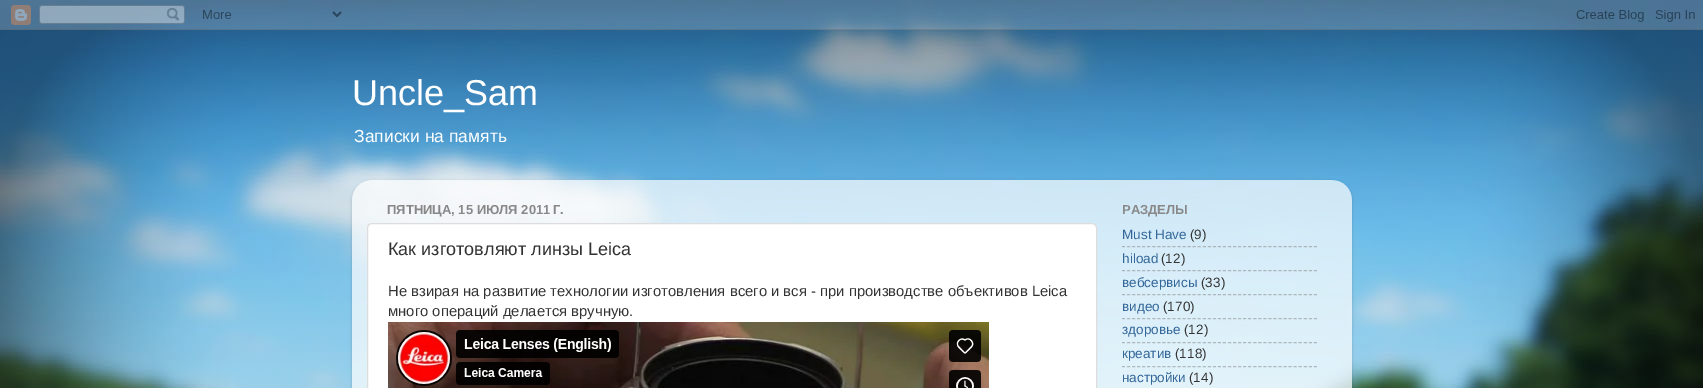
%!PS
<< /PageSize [1703 388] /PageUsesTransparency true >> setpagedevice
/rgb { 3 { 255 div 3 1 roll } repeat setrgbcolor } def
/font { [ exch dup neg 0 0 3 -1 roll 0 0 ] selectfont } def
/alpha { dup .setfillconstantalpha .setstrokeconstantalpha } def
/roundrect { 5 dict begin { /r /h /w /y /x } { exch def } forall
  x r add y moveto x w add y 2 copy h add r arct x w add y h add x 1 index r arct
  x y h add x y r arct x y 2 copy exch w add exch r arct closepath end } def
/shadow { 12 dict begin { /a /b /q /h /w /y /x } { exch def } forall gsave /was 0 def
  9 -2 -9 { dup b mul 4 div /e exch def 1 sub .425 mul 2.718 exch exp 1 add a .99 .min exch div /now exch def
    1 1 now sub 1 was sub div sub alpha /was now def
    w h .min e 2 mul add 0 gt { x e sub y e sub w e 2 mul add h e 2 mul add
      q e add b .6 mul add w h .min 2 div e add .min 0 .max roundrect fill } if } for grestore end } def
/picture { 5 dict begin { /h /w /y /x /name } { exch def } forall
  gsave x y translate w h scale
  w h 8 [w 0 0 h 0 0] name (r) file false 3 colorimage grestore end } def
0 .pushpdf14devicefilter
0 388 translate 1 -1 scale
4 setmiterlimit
255 255 255 rgb
0 0 1703 388 rectfill
(img/1.rgb) 0 0 1703 388 picture
(img/2.rgb) 0 0 1703 30 picture
gsave
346 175 moveto 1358 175 lineto 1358 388 lineto 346 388 lineto closepath 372 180 moveto 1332 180 lineto 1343 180 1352 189 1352 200 curveto 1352 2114 lineto 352 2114 lineto 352 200 lineto 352 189 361 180 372 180 curveto closepath eoclip newpath
0 0 0 rgb
352 181 1000 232 20 1.5 0.15 shadow
grestore
(img/3.rgb) 352 180 1000 208 picture
367.5 223.5 729 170 4.5 roundrect gsave fill grestore
221 221 221 rgb
stroke
(img/4.rgb) 388 322 601 66 picture
171 182 188 rgb
[3 2.05] 0 setdash
1122 246.5 moveto 1317 246.5 lineto stroke
172 183 189 rgb
1122 270.5 moveto 1317 270.5 lineto stroke
173 183 188 rgb
1122 294.5 moveto 1317 294.5 lineto stroke
174 184 189 rgb
1122 318.5 moveto 1317 318.5 lineto stroke
175 184 189 rgb
1122 342.5 moveto 1317 342.5 lineto stroke
176 185 189 rgb
1122 366.5 moveto 1317 366.5 lineto stroke
/LiberationSans-Regular 36 font
255 255 255 rgb
352 105 moveto (Uncle_Sam) show
/LiberationSans-Regular 17.5 font
354 142 moveto (Записки на память) show
/LiberationSans-Bold 13 font
136 136 136 rgb
387 214 moveto (ПЯТНИЦА, 15 ИЮЛЯ 2011 Г.) show
/LiberationSans-Regular 18 font
51 51 51 rgb
388 255 moveto (Как изготовляют линзы Leica) show
/LiberationSans-Regular 14.85 font
388 296 moveto (Не взирая на развитие технологии изготовления всего и вся - при производстве объективов Leica) show
388 316 moveto (много операций делается вручную.) show
/LiberationSans-Bold 13 font
136 136 136 rgb
1122 214 moveto (РАЗДЕЛЫ) show
/LiberationSans-Regular 13.5 font
51 102 153 rgb
1122 239 moveto (Must Have) show
51 51 51 rgb
1190 239 moveto (\(9\)) show
51 102 153 rgb
1122 263 moveto (hiload) show
51 51 51 rgb
1161 263 moveto (\(12\)) show
51 102 153 rgb
1122 287 moveto (вебсервисы) show
51 51 51 rgb
1201 287 moveto (\(33\)) show
51 102 153 rgb
1122 311 moveto (видео) show
51 51 51 rgb
1163 311 moveto (\(170\)) show
51 102 153 rgb
1122 334 moveto (здоровье) show
51 51 51 rgb
1184 334 moveto (\(12\)) show
51 102 153 rgb
1122 358 moveto (креатив) show
51 51 51 rgb
1175 358 moveto (\(118\)) show
51 102 153 rgb
1122 382 moveto (настройки) show
51 51 51 rgb
1189 382 moveto (\(14\)) show
.poppdf14devicefilter showpage
